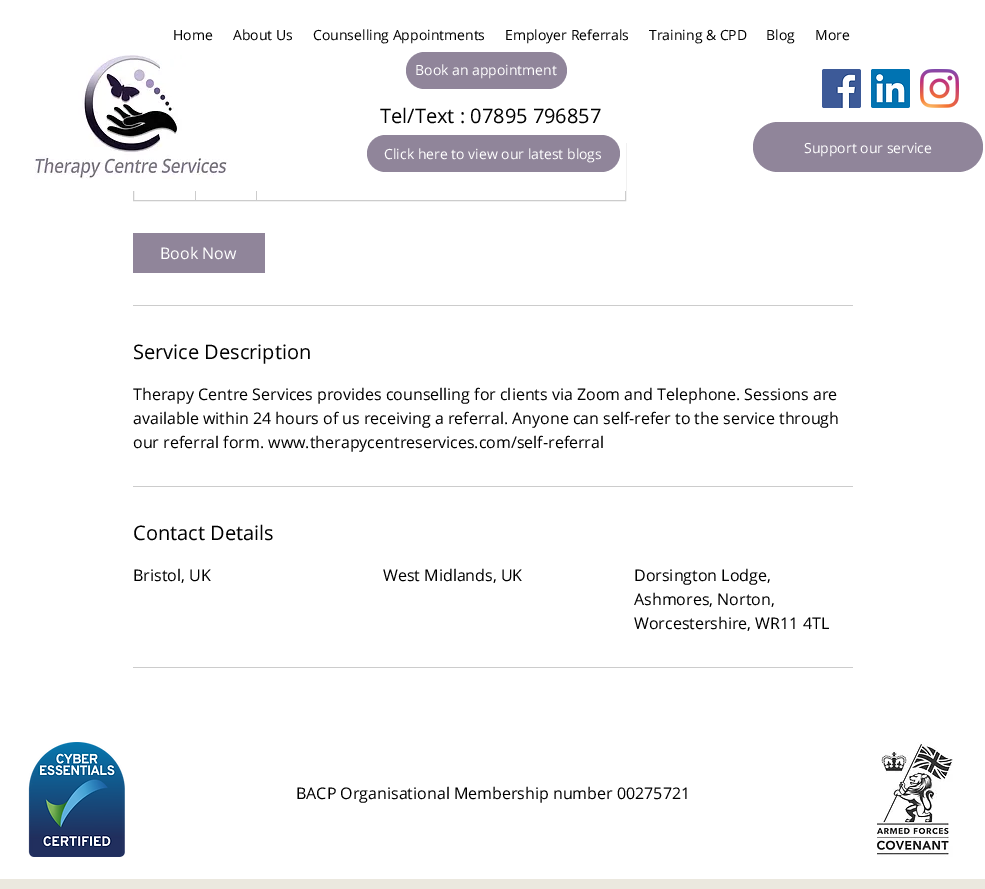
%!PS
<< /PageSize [985 889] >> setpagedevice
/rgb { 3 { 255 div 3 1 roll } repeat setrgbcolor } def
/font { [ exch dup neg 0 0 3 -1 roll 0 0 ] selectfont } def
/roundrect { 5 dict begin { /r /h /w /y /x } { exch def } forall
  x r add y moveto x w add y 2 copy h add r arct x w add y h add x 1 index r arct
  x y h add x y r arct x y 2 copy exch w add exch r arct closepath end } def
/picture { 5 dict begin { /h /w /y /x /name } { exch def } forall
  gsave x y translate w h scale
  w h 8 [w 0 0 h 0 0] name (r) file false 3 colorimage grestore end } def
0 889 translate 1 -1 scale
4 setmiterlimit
255 255 255 rgb
0 0 985 889 rectfill
204 204 204 rgb
133.5 143.5 492 57 rectstroke
195 200 moveto 195 143 lineto 196 144 lineto 196 200 lineto closepath 256 200 moveto 256 143 lineto 257 144 lineto 257 200 lineto closepath fill
255 255 255 rgb
133 143 493 48 rectfill
(img/1.rgb) 34 55 196 124 picture
144 133 154 rgb
406 52 161 37 18.5 roundrect fill
(img/2.rgb) 822 69 39 39 picture
(img/3.rgb) 871 69 39 39 picture
(img/4.rgb) 920 69 39 39 picture
367 135 253 37 18.5 roundrect fill
753 122 230 50 25 roundrect fill
[
  [133 233 132 40 144 133 154]
  [133 305 720 1 204 204 204]
  [133 486 720 1 204 204 204]
  [133 667 720 1 204 204 204]
] { aload pop rgb rectfill } forall
(img/5.rgb) 28 742 97 115 picture
(img/6.rgb) 877 742 76 115 picture
235 232 223 rgb
0 879 985 10 rectfill
/OpenSans-Regular 14 font
0 0 0 rgb
[
  [(Home) 173 40]
  [(About Us) 233 40]
  [(Counselling Appointments) 313 40]
  [(Employer Referrals) 505 40]
  [(Training & CPD) 649 40]
  [(Blog) 766 40]
  [(More) 815 40]
] { aload pop moveto show } forall
255 255 255 rgb
415 75 moveto (Book an appointment) show
/OpenSans-Regular 20 font
0 0 0 rgb
380 123 moveto (Tel/Text : 07895 796857) show
/OpenSans-Regular 14 font
255 255 255 rgb
384 159 moveto (Click here to view our latest blogs) show
804 153 moveto (Support our service) show
/OpenSans-Regular 16 font
160 259 moveto (Book Now) show
/OpenSans-Regular 20 font
0 0 0 rgb
133 359 moveto (Service Description) show
/OpenSans-Regular 16 font
[
  [(Therapy Centre Services provides counselling for clients via Zoom and Telephone. Sessions are) 133 400]
  [(available within 24 hours of us receiving a referral. Anyone can self-refer to the service through) 133 424]
  [(our referral form. www.therapycentreservices.com/self-referral) 133 448]
] { aload pop moveto show } forall
/OpenSans-Regular 20 font
133 540 moveto (Contact Details) show
/OpenSans-Regular 16 font
[
  [(Bristol, UK) 133 581]
  [(West Midlands, UK) 383 581]
  [(Dorsington Lodge,) 634 581]
  [(Ashmores, Norton,) 634 605]
  [(Worcestershire, WR11 4TL) 634 629]
  [(BACP Organisational Membership number 00275721) 296 799]
] { aload pop moveto show } forall
showpage
